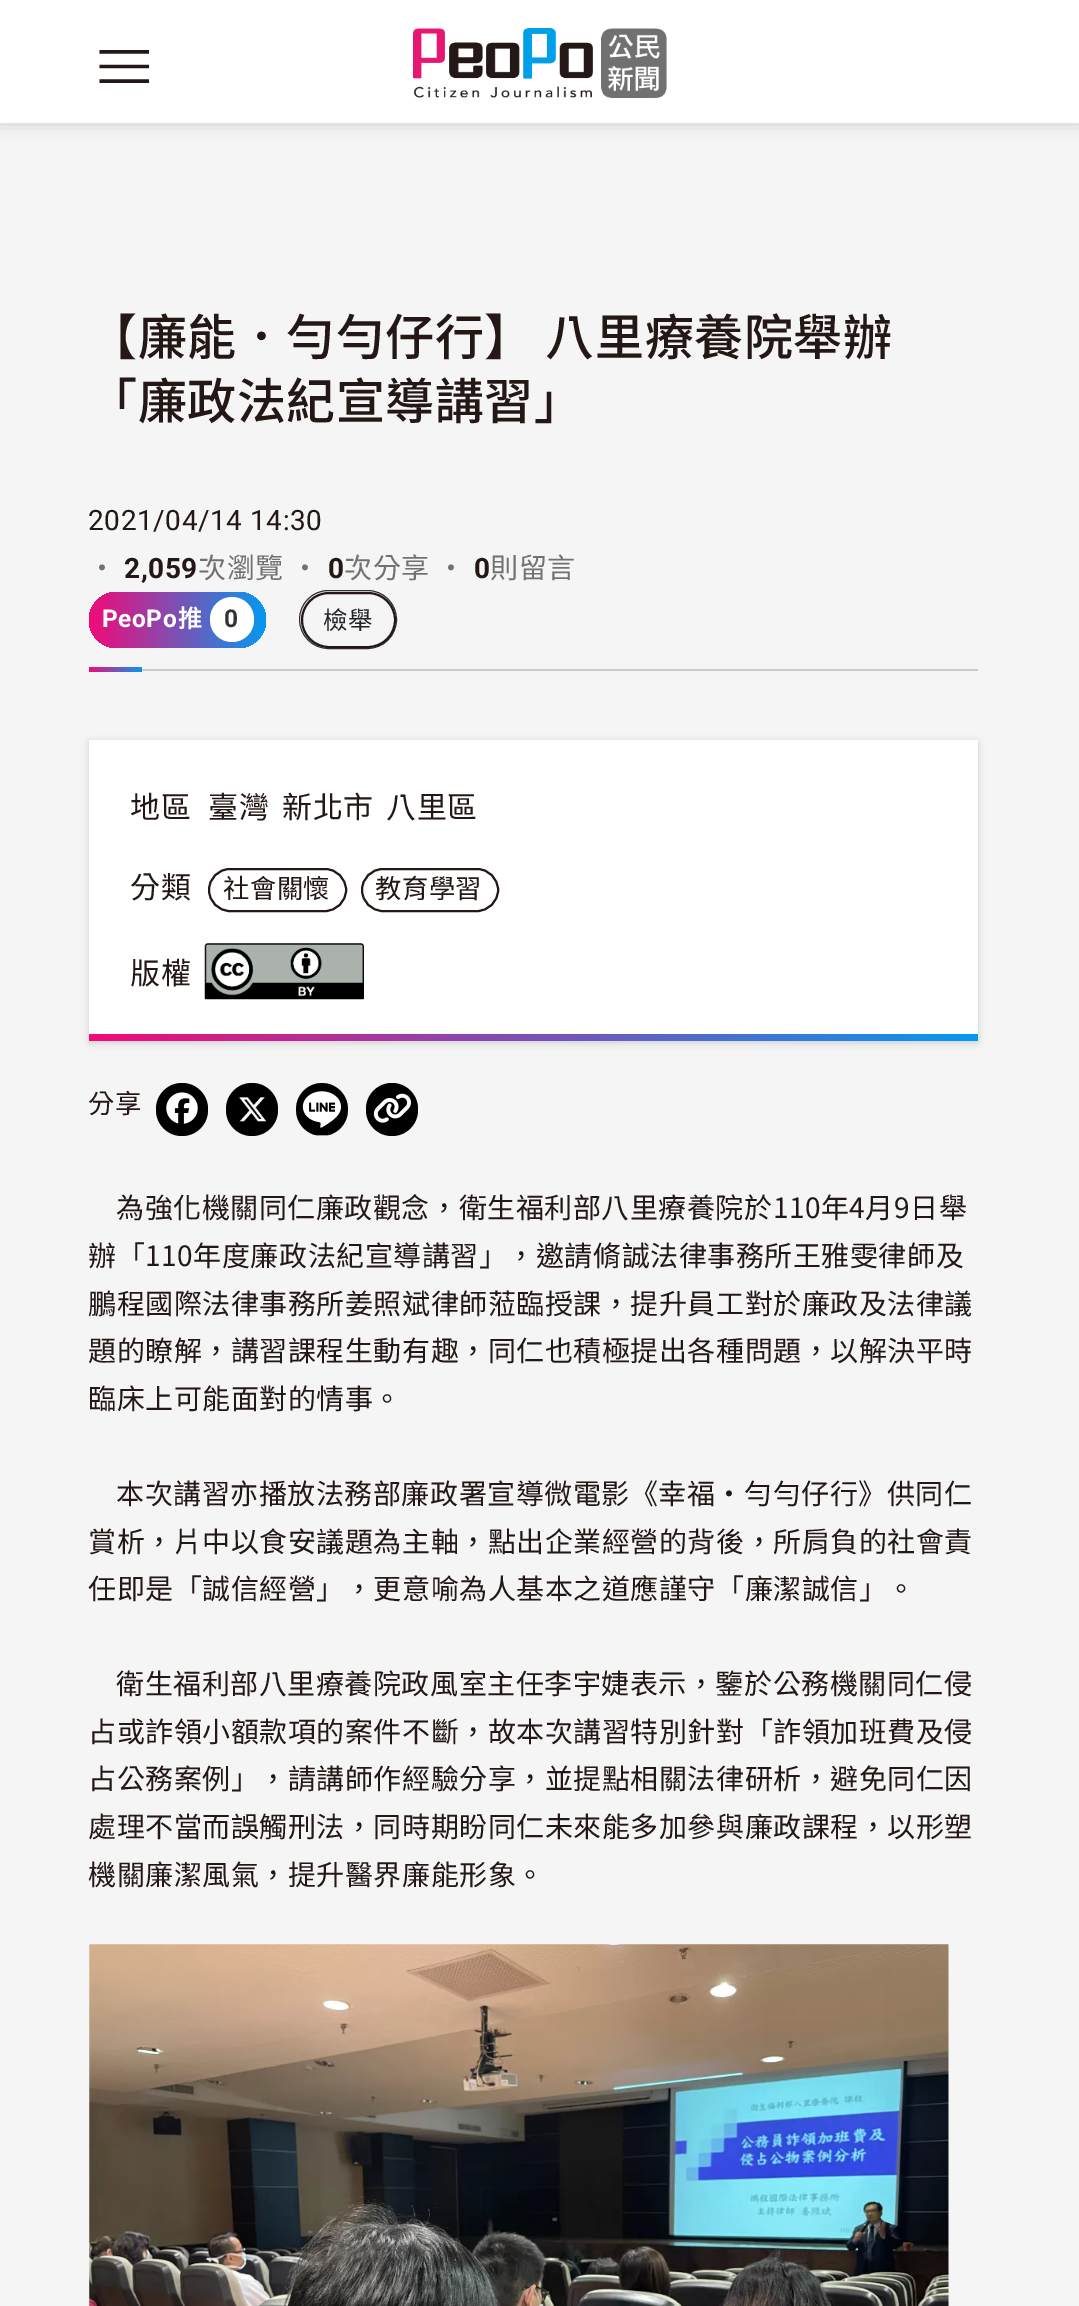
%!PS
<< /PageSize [1079 2306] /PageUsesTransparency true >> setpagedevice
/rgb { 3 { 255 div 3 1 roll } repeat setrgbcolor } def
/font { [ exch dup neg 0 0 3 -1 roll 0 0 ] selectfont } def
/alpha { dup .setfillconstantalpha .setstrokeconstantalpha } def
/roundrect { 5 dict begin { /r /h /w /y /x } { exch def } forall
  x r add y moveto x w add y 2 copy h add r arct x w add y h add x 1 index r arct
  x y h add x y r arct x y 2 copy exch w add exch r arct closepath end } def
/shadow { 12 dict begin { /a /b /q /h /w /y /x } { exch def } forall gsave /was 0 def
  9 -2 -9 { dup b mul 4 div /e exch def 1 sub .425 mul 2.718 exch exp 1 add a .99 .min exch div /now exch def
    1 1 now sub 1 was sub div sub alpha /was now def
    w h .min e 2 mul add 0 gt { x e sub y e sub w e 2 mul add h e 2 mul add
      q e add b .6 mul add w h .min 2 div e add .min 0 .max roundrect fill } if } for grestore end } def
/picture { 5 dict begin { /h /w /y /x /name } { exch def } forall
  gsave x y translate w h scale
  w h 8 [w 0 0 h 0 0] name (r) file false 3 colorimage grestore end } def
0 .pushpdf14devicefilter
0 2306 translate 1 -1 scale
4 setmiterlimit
245 245 245 rgb
0 0 1079 2306 rectfill
0 0 0 rgb
0 2 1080 122 0 8 0.15 shadow
255 255 255 rgb
0 0 1079 123 rectfill
(img/1.rgb) 99 50 51 33 picture
(img/2.rgb) 413 28 254 70 picture
205 203 202 rgb
142 669 836 2 rectfill
gsave 89 592 177 56 28 roundrect clip newpath
<< /ShadingType 2 /ColorSpace /DeviceRGB /Coords [266 620 89 620] /Extend [true true] /Function << /FunctionType 2 /Domain [0 1] /C0 [0.02 0.6 0.941] /C1 [0.949 0.039 0.471] /N 1 >> >> shfill grestore
255 255 255 rgb
210 597 44 45 22 roundrect fill
49 49 49 rgb
299.5 590.5 97 58 29 roundrect stroke
35 24 21 rgb
2 setlinewidth
302 593 93 54 27 roundrect stroke
gsave 89 667 moveto 142 667 lineto 142 672 lineto 89 672 lineto closepath clip newpath
<< /ShadingType 2 /ColorSpace /DeviceRGB /Coords [142 669 89 669] /Extend [true true] /Function << /FunctionType 2 /Domain [0 1] /C0 [0.02 0.6 0.941] /C1 [0.949 0.039 0.471] /N 1 >> >> shfill grestore
0 0 0 rgb
89 742 889 301 0 3.5 0.15 shadow
255 255 255 rgb
89 740 889 294 rectfill
35 24 21 rgb
209 869 137 42 21 roundrect stroke
362 869 136 42 21 roundrect stroke
(img/3.rgb) 204 943 160 57 picture
gsave 89 1034 moveto 978 1034 lineto 978 1041 lineto 89 1041 lineto closepath clip newpath
<< /ShadingType 2 /ColorSpace /DeviceRGB /Coords [978 1038 89 1038] /Extend [true true] /Function << /FunctionType 2 /Domain [0 1] /C0 [0.02 0.6 0.941] /C1 [0.949 0.039 0.471] /N 1 >> >> shfill grestore
0 0 0 rgb
156 1083 52 53 26 roundrect fill
(img/4.rgb) 166 1092 32 32 picture
226 1083 52 53 26 roundrect fill
(img/5.rgb) 239 1097 27 25 picture
255 255 255 rgb
296 1083 52 53 26 roundrect fill
(img/6.rgb) 296 1083 52 53 picture
0 0 0 rgb
366 1083 52 53 26 roundrect fill
(img/7.rgb) 373 1093 38 30 picture
(img/8.rgb) 89 1944 860 362 picture
/NotoSansTC-Medium 49 font
35 24 21 rgb
88 355 moveto 0.55 0 (【廉能．勻勻仔行】 八里療養院舉辦) ashow
88 419 moveto 0.55 0 (「廉政法紀宣導講習」) ashow
/Roboto-Regular 28 font
88 530 moveto 0.55 0 (2021/04/14 14:30) ashow
/NotoSansTC-Regular 28 font
114 113 113 rgb
88 578 moveto 0.55 0 (・) ashow
/Roboto-Bold 28 font
35 24 21 rgb
124 578 moveto 0.55 0 (2,059) ashow
/NotoSansTC-Regular 28 font
114 113 113 rgb
198 578 moveto 1 0 32 0.55 0 (次瀏覽 ・) awidthshow
/Roboto-Bold 28 font
35 24 21 rgb
328 578 moveto 0.55 0 (0) ashow
/NotoSansTC-Regular 28 font
114 113 113 rgb
344 578 moveto 1 0 32 0.55 0 (次分享 ・) awidthshow
/Roboto-Bold 28 font
35 24 21 rgb
474 578 moveto 0.55 0 (0) ashow
/NotoSansTC-Regular 28 font
114 113 113 rgb
490 578 moveto 0.55 0 (則留言) ashow
/Roboto-Bold 24.5 font
255 255 255 rgb
102 627 moveto 0.55 0 (PeoPo) ashow
/NotoSansTC-SemiBold 24.5 font
178 627 moveto 0.55 0 (推) ashow
/Roboto-Bold 24.5 font
51 51 51 rgb
224 627 moveto 0.55 0 (0) ashow
/NotoSansTC-Regular 24.5 font
33 37 41 rgb
323 629 moveto 0.55 0 (檢舉) ashow
/NotoSansTC-Regular 30 font
35 24 21 rgb
130 818 moveto 0.55 0 (地區) ashow
208 818 moveto 0.55 0 (臺灣) ashow
282 818 moveto 0.55 0 (新北市) ashow
386 818 moveto 0.55 0 (八里區) ashow
130 898 moveto 0.55 0 (分類) ashow
/NotoSansTC-Regular 26.25 font
223 898 moveto 0.55 0 (社會關懷) ashow
375 898 moveto 0.55 0 (教育學習) ashow
/NotoSansTC-Regular 30 font
130 984 moveto 0.55 0 (版權) ashow
/NotoSansTC-Regular 26.25 font
88 1113 moveto 0.55 0 (分享) ashow
/NotoSansTC-Regular 28 font
116 1218 moveto 0.55 0 (為強化機關同仁廉政觀念，衛生福利部八里療養院於110年4月9日舉) ashow
88 1266 moveto 0.55 0 (辦「110年度廉政法紀宣導講習」，邀請脩誠法律事務所王雅雯律師及) ashow
88 1314 moveto 0.55 0 (鵬程國際法律事務所姜照斌律師蒞臨授課，提升員工對於廉政及法律議) ashow
88 1361 moveto 0.55 0 (題的瞭解，講習課程生動有趣，同仁也積極提出各種問題，以解決平時) ashow
88 1409 moveto 0.55 0 (臨床上可能面對的情事。) ashow
116 1504 moveto 0.55 0 (本次講習亦播放法務部廉政署宣導微電影《幸福·勻勻仔行》供同仁) ashow
88 1552 moveto 0.55 0 (賞析，片中以食安議題為主軸，點出企業經營的背後，所肩負的社會責) ashow
88 1599 moveto 0.55 0 (任即是「誠信經營」，更意喻為人基本之道應謹守「廉潔誠信」。) ashow
116 1694 moveto 0.55 0 (衛生福利部八里療養院政風室主任李宇婕表示，鑒於公務機關同仁侵) ashow
88 1742 moveto 0.55 0 (占或詐領小額款項的案件不斷，故本次講習特別針對「詐領加班費及侵) ashow
88 1789 moveto 0.55 0 (占公務案例」，請講師作經驗分享，並提點相關法律研析，避免同仁因) ashow
88 1837 moveto 0.55 0 (處理不當而誤觸刑法，同時期盼同仁未來能多加參與廉政課程，以形塑) ashow
88 1885 moveto 0.55 0 (機關廉潔風氣，提升醫界廉能形象。) ashow
.poppdf14devicefilter showpage
